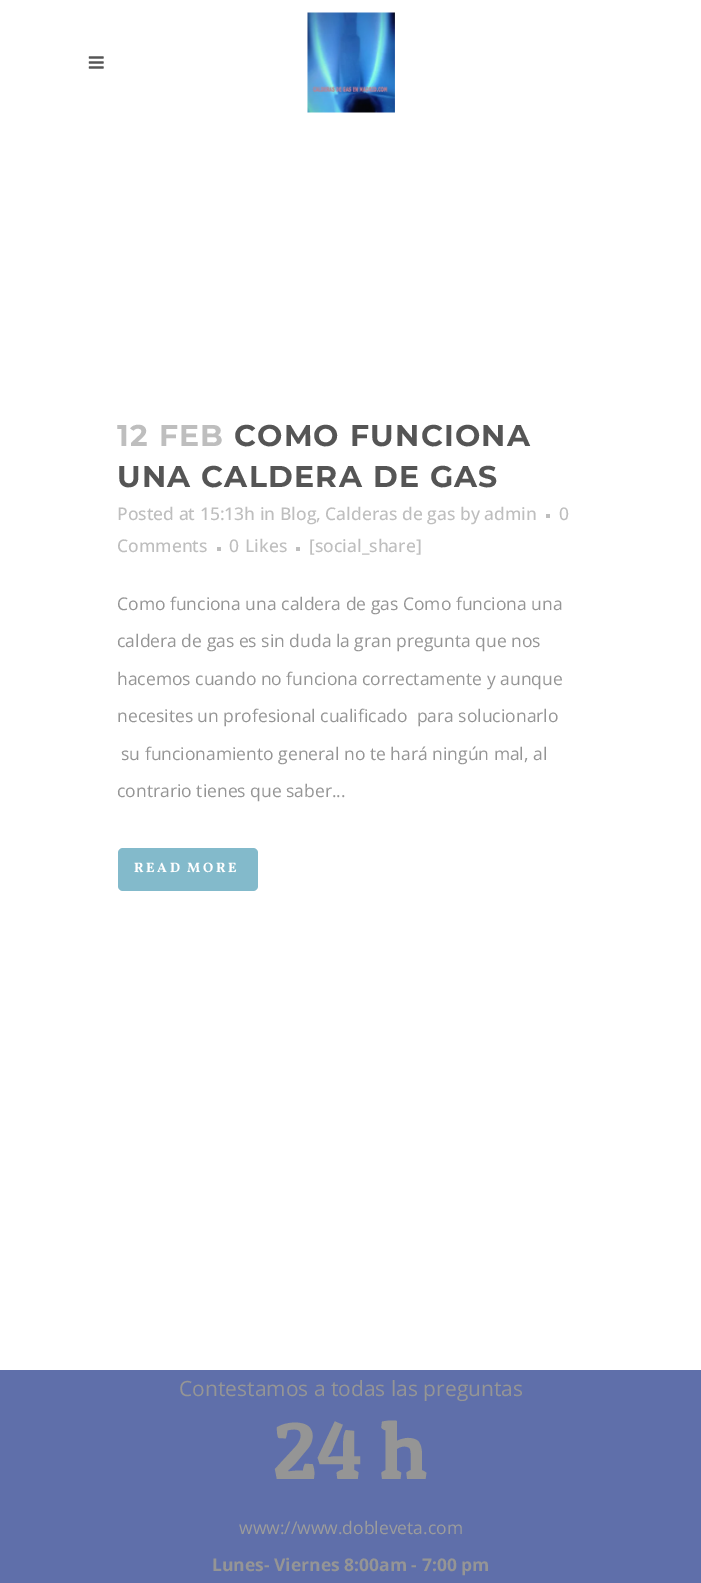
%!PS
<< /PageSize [701 1583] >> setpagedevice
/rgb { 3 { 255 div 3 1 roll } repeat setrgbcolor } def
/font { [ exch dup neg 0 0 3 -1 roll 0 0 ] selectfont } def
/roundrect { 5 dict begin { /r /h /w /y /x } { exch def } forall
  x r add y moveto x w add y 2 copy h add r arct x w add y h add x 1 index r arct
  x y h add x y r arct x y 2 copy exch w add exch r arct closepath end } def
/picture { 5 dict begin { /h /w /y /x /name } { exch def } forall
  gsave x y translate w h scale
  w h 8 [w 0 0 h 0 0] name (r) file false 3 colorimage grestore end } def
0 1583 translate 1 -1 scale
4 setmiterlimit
255 255 255 rgb
0 0 701 1583 rectfill
(img/1.rgb) 88 56 16 13 picture
(img/2.rgb) 307 12 88 101 picture
[
  [546 514 4 4 190 190 190]
  [217 547 4 4 190 190 190]
  [296 547 4 4 190 190 190]
] { aload pop rgb rectfill } forall
131 186 203 rgb
118 848 140 43 5 roundrect fill
95 111 170 rgb
0 1370 701 213 rectfill
/Montserrat-Bold 30 font
190 190 190 rgb
117 446 moveto 1.25 0 (12 FEB) ashow
85 85 85 rgb
234 446 moveto 1.25 0 (COMO FUNCIONA) ashow
117 487 moveto 1.25 0 (UNA CALDERA DE GAS) ashow
/OpenSans-Medium 17.5 font
190 190 190 rgb
[
  [(Posted at 15:13h in Blog, Calderas de gas by admin) 117 520]
  [(0) 559 520]
  [(Comments) 117 552]
  [(0) 229 552]
  [(Likes) 245 552]
  [([social_share]) 309 552]
] { aload pop moveto show } forall
/OpenSans-Regular 17.5 font
149 149 149 rgb
[
  [(Como funciona una caldera de gas Como funciona una) 117 610]
  [(caldera de gas es sin duda la gran pregunta que nos) 117 647]
  [(hacemos cuando no funciona correctamente y aunque) 117 685]
  [(necesites un profesional cualificado  para solucionarlo) 117 722]
  [(su funcionamiento general no te hará ningún mal, al) 121 760]
  [(contrario tienes que saber...) 117 797]
] { aload pop moveto show } forall
/Vollkorn-Bold 13.75 font
255 255 255 rgb
134 872 moveto 2.5 0 (READ MORE) ashow
/OpenSans-Regular 21 font
149 149 149 rgb
179 1396 moveto (Contestamos a todas las preguntas) show
/PatuaOne-Regular 81 font
273 1479 moveto (24 h) show
/OpenSans-Regular 17.5 font
156 156 156 rgb
239 1534 moveto (www://www.dobleveta.com) show
/OpenSans-Bold 17.5 font
149 149 149 rgb
212 1571 moveto (Lunes- Viernes 8:00am - 7:00 pm) show
showpage
